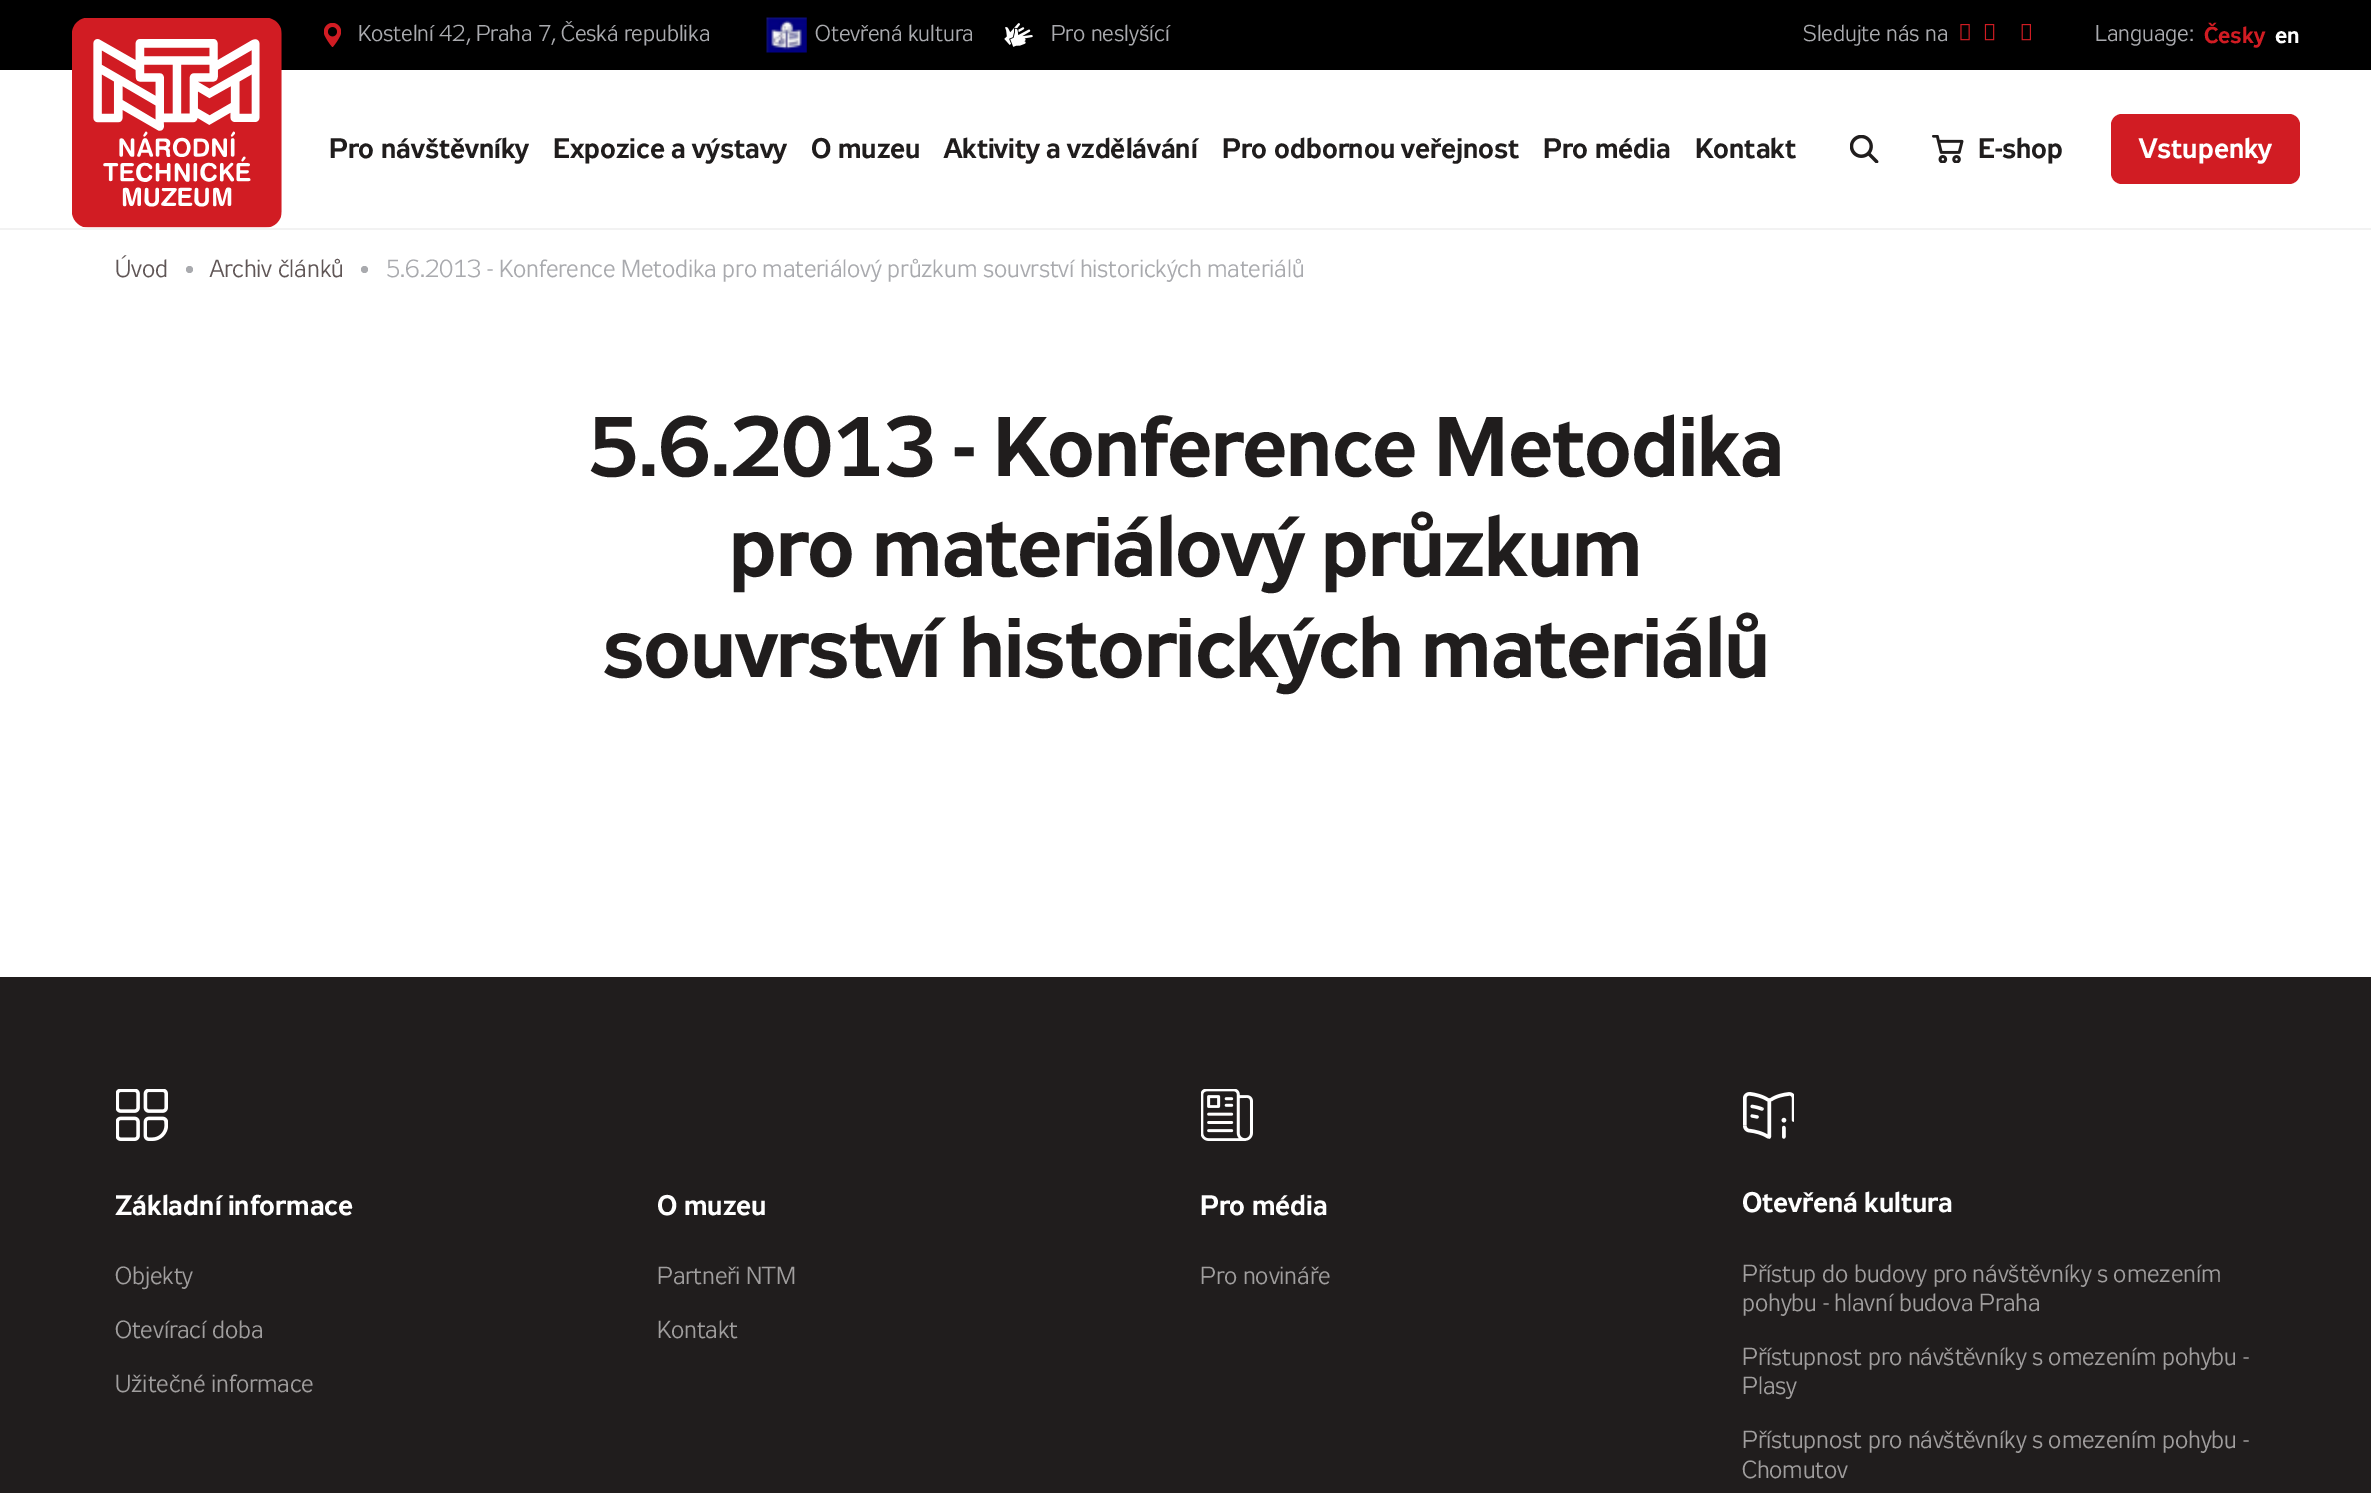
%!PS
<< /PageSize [2371 1493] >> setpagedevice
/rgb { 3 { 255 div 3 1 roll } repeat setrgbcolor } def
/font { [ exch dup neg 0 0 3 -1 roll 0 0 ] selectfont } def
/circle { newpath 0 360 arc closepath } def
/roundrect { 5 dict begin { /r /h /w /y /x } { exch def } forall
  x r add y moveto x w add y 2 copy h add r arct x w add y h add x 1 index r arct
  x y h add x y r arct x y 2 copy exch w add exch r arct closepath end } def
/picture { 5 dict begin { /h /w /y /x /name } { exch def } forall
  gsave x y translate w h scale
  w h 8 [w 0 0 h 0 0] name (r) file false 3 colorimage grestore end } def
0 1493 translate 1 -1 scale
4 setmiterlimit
255 255 255 rgb
0 0 2371 1493 rectfill
242 242 242 rgb
0 228 2371 2 rectfill
0 0 0 rgb
0 0 2371 70 rectfill
(img/1.rgb) 324 23 17 24 picture
(img/2.rgb) 766 17 41 36 picture
(img/3.rgb) 1004 23 29 24 picture
(img/4.rgb) 1960 24 10 17 picture
(img/5.rgb) 1984 24 11 17 picture
(img/6.rgb) 2021 24 10 17 picture
(img/7.rgb) 72 18 210 210 picture
(img/8.rgb) 1850 135 29 28 picture
(img/9.rgb) 1932 135 32 28 picture
209 28 35 rgb
2111 114 189 70 11 roundrect fill
169 170 174 rgb
189.5 269.5 3.5 circle fill
364.5 269.5 3.5 circle fill
32 29 29 rgb
0 977 2371 516 rectfill
(img/10.rgb) 116 1089 52 52 picture
(img/11.rgb) 1201 1089 52 52 picture
(img/12.rgb) 1743 1092 51 47 picture
/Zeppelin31-Regular 22.75 font
169 170 174 rgb
[
  [(Kostelní 42, Praha 7, Česká republika) 358 41]
  [(Otevřená kultura) 815 41]
  [(Pro neslyšící) 1051 41]
  [(Sledujte nás na) 1803 41]
  [(Language:) 2095 41]
] { aload pop moveto show } forall
/Zeppelin31-Bold 22.75 font
209 28 35 rgb
2204 43 moveto (Česky) show
255 255 255 rgb
2275 43 moveto (en) show
/Zeppelin31-Bold 28 font
32 29 29 rgb
[
  [(Pro návštěvníky) 329 158]
  [(Expozice a výstavy) 553 158]
  [(O muzeu) 811 158]
  [(Aktivity a vzdělávání) 944 158]
  [(Pro odbornou veřejnost) 1222 158]
  [(Pro média) 1543 158]
  [(Kontakt) 1695 158]
  [(E-shop) 1978 158]
] { aload pop moveto show } forall
255 255 255 rgb
2139 158 moveto (Vstupenky) show
/Zeppelin31-Regular 24.5 font
96 86 86 rgb
115 277 moveto (Úvod) show
210 277 moveto (Archiv článků) show
169 170 174 rgb
386 277 moveto (5.6.2013 - Konference Metodika pro materiálový průzkum souvrství historických materiálů) show
/Zeppelin31-Bold 84 font
32 29 29 rgb
587 476 moveto -0.85 0 (5.6.2013 - Konference Metodika) ashow
729 576 moveto -0.85 0 (pro materiálový průzkum) ashow
602 677 moveto -0.85 0 (souvrství historických materiálů) ashow
/Zeppelin31-Bold 28 font
255 255 255 rgb
115 1215 moveto (Základní informace) show
/Zeppelin31-Regular 24.5 font
160 158 158 rgb
[
  [(Objekty) 115 1284]
  [(Otevírací doba) 115 1338]
  [(Užitečné informace) 115 1392]
] { aload pop moveto show } forall
/Zeppelin31-Bold 28 font
255 255 255 rgb
657 1215 moveto (O muzeu) show
/Zeppelin31-Regular 24.5 font
160 158 158 rgb
657 1284 moveto (Partneři NTM) show
657 1338 moveto (Kontakt) show
/Zeppelin31-Bold 28 font
255 255 255 rgb
1200 1215 moveto (Pro média) show
/Zeppelin31-Regular 24.5 font
160 158 158 rgb
1200 1284 moveto (Pro novináře) show
/Zeppelin31-Bold 28 font
255 255 255 rgb
1742 1212 moveto (Otevřená kultura) show
/Zeppelin31-Regular 24.5 font
160 158 158 rgb
[
  [(Přístup do budovy pro návštěvníky s omezením) 1742 1282]
  [(pohybu - hlavní budova Praha) 1742 1311]
  [(Přístupnost pro návštěvníky s omezením pohybu -) 1742 1365]
  [(Plasy) 1742 1394]
  [(Přístupnost pro návštěvníky s omezením pohybu -) 1742 1448]
  [(Chomutov) 1742 1478]
] { aload pop moveto show } forall
showpage
